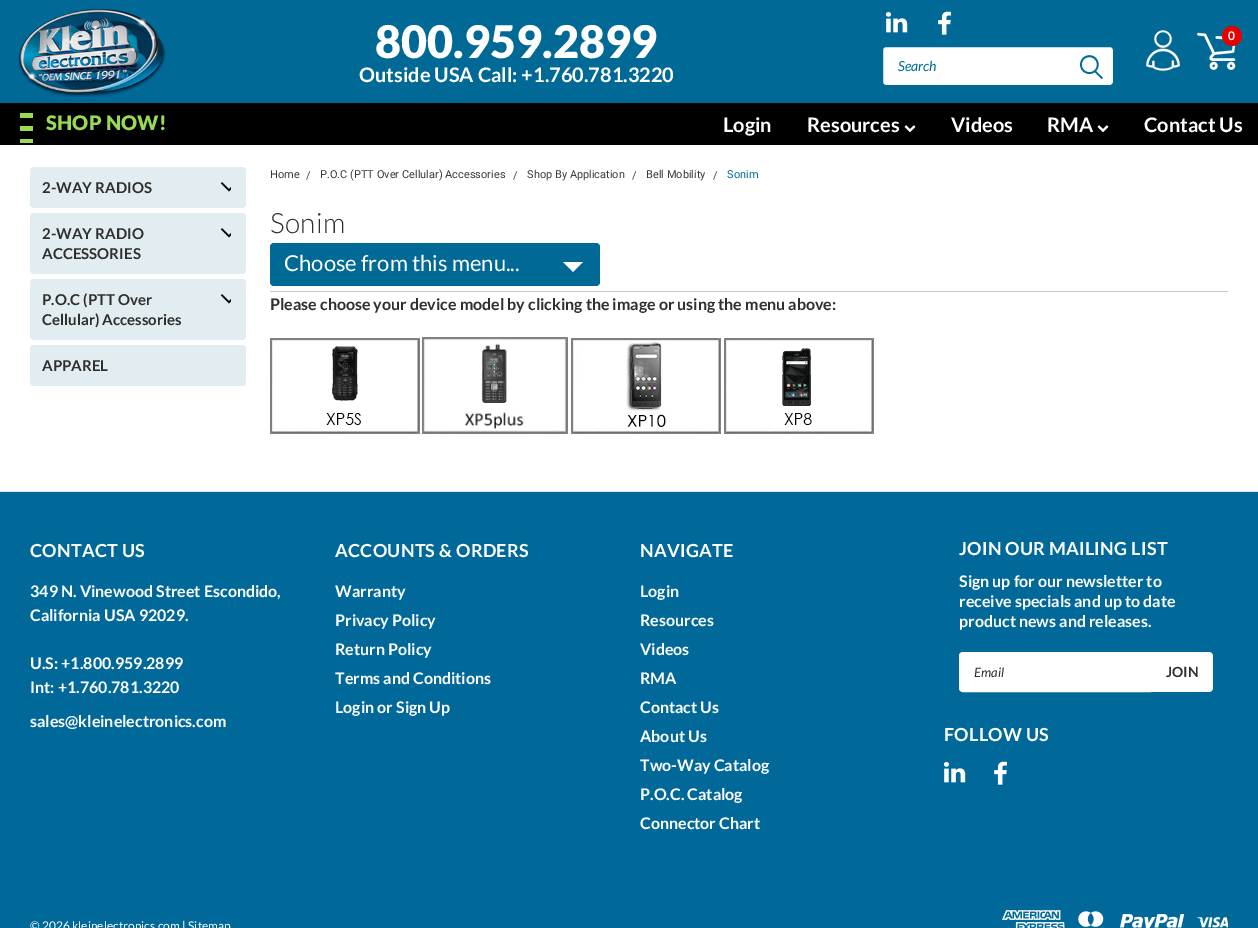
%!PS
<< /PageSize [1258 928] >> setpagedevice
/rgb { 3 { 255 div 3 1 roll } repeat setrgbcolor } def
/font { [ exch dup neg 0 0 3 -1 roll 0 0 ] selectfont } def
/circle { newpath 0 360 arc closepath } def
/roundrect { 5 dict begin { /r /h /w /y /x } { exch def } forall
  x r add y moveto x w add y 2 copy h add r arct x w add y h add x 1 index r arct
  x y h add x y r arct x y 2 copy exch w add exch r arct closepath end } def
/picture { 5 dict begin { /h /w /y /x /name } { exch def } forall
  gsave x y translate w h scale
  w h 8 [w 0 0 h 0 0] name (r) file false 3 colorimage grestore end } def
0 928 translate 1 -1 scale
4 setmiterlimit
255 255 255 rgb
0 0 1258 928 rectfill
0 105 150 rgb
0 0 1258 103 rectfill
(img/1.rgb) 18 9 148 88 picture
(img/2.rgb) 1146 30 34 41 picture
(img/3.rgb) 1197 32 39 38 picture
230 0 0 rgb
1232 36 10 circle fill
(img/4.rgb) 885 12 23 21 picture
(img/5.rgb) 938 11 13 24 picture
255 255 255 rgb
882.5 46.5 231 39 3.5 roundrect gsave fill grestore
0 105 150 rgb
stroke
(img/6.rgb) 1080 55 23 25 picture
[
  [0 103 1258 42 0 0 0]
  [20 113 13 5 153 218 83]
  [20 126 13 5 153 218 83]
  [20 139 13 4 153 218 83]
] { aload pop rgb rectfill } forall
(img/7.rgb) 904 125 12 8 picture
(img/7.rgb) 1097 125 12 8 picture
226 237 242 rgb
30 167 216 41 4 roundrect fill
30 167 183 40 4 roundrect fill
(img/8.rgb) 220 182 11 10 picture
30 213 216 61 4 roundrect fill
30 213 183 60 4 roundrect fill
(img/8.rgb) 220 228 11 10 picture
30 279 216 61 4 roundrect fill
30 279 183 60 4 roundrect fill
(img/8.rgb) 220 294 11 10 picture
30 345 216 41 4 roundrect fill
30 345 183 40 4 roundrect fill
201 201 201 rgb
270 291 958 1 rectfill
0 105 150 rgb
270 243 330 43 4 roundrect fill
255 255 255 rgb
563 262 moveto 583 262 lineto 573 272 lineto closepath fill
(img/9.rgb) 270 338 150 96 picture
(img/10.rgb) 422 337 146 97 picture
(img/11.rgb) 571 338 150 96 picture
(img/12.rgb) 724 338 150 96 picture
0 105 153 rgb
0 492 1258 436 rectfill
228 229 215 rgb
0 491 1258 1 rectfill
255 255 255 rgb
963 652.5 moveto 1150.5 652.5 lineto 1150.5 691.5 lineto 963 691.5 lineto 961 691.5 959.5 690 959.5 688 curveto 959.5 656 lineto 959.5 654 961 652.5 963 652.5 curveto closepath gsave fill grestore
stroke
1151 652 moveto 1209 652 lineto 1211 652 1213 654 1213 656 curveto 1213 688 lineto 1213 690 1211 692 1209 692 curveto 1151 692 lineto closepath fill
(img/13.rgb) 943 762 23 21 picture
(img/14.rgb) 994 761 13 24 picture
(img/15.rgb) 1002 910 63 18 picture
(img/16.rgb) 1078 911 26 17 picture
(img/17.rgb) 1120 914 65 14 picture
(img/18.rgb) 1197 917 31 11 picture
/Lato-Black 45 font
375 58 moveto (800.959.2899) show
/Lato-Bold 20 font
359 82 moveto (Outside USA Call: +1.760.781.3220) show
/Lato-Bold 12 font
1228 40 moveto (0) show
/Lato-Italic 14 font
0 105 150 rgb
898 71 moveto (Search) show
/Lato-Black 20 font
153 218 83 rgb
46 130 moveto 0.25 0 (SHOP NOW!) ashow
/Lato-Bold 20 font
255 255 255 rgb
[
  [(Login) 723 132]
  [(Resources) 807 132]
  [(Videos) 951 132]
  [(RMA) 1047 132]
  [(Contact Us) 1144 132]
] { aload pop moveto show } forall
/Lato-Bold 15 font
47 47 43 rgb
[
  [(2-WAY RADIOS) 42 193]
  [(2-WAY RADIO) 42 239]
  [(ACCESSORIES) 42 259]
  [(P.O.C \(PTT Over) 42 305]
  [(Cellular\) Accessories) 42 325]
  [(APPAREL) 42 371]
] { aload pop moveto show } forall
/Roboto-Regular 11 font
57 57 57 rgb
[
  [(Home) 270 178]
  [(/) 306 179]
  [(P.O.C \(PTT Over Cellular\) Accessories) 320 178]
  [(/) 513 179]
  [(Shop By Application) 527 178]
  [(/) 632 179]
  [(Bell Mobility) 646 178]
  [(/) 713 179]
] { aload pop moveto show } forall
0 105 150 rgb
727 178 moveto (Sonim) show
/Lato-Light 28 font
47 47 43 rgb
270 233 moveto 0.25 0 (Sonim) ashow
/Lato-Regular 22 font
255 255 255 rgb
284 271 moveto (Choose from this menu...) show
/Lato-Bold 16 font
47 47 43 rgb
270 310 moveto (Please choose your device model by clicking the image or using the menu above:) show
/Lato-Bold 18 font
255 255 255 rgb
30 557 moveto 0.25 0 (CONTACT US) ashow
/Lato-Bold 16 font
[
  [(349 N. Vinewood Street Escondido,) 30 597]
  [(California USA 92029.) 30 621]
  [(U.S: +1.800.959.2899) 30 669]
  [(Int: +1.760.781.3220) 30 693]
  [(sales@kleinelectronics.com) 30 727]
] { aload pop moveto show } forall
/Lato-Bold 18 font
335 557 moveto 0.25 0 (ACCOUNTS & ORDERS) ashow
/Lato-Bold 16 font
[
  [(Warranty) 335 597]
  [(Privacy Policy) 335 626]
  [(Return Policy) 335 655]
  [(Terms and Conditions) 335 684]
  [(Login or) 335 713]
  [(Sign Up) 396 713]
] { aload pop moveto show } forall
/Lato-Bold 18 font
640 557 moveto 0.25 0 (NAVIGATE) ashow
/Lato-Bold 16 font
[
  [(Login) 640 597]
  [(Resources) 640 626]
  [(Videos) 640 655]
  [(RMA) 640 684]
  [(Contact Us) 640 713]
  [(About Us) 640 742]
  [(Two-Way Catalog) 640 771]
  [(P.O.C. Catalog) 640 800]
  [(Connector Chart) 640 829]
] { aload pop moveto show } forall
/Lato-Bold 18 font
959 555 moveto 0.25 0 (JOIN OUR MAILING LIST) ashow
/Lato-Bold 16 font
[
  [(Sign up for our newsletter to) 959 587]
  [(receive specials and up to date) 959 607]
  [(product news and releases.) 959 627]
] { aload pop moveto show } forall
/Lato-Italic 13 font
47 47 43 rgb
974 677 moveto (Email) show
/Lato-Bold 14 font
1166 677 moveto (JOIN) show
/Lato-Bold 18 font
255 255 255 rgb
944 741 moveto 0.25 0 (FOLLOW US) ashow
/Lato-Regular 12 font
30 930 moveto (© 2026 kleinelectronics.com | Sitemap) show
showpage
